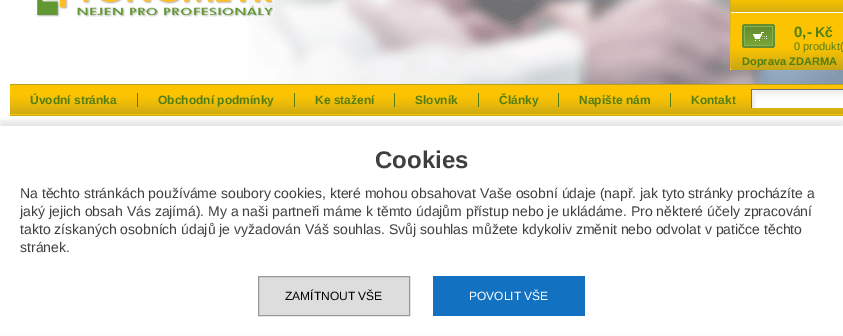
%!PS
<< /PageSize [843 336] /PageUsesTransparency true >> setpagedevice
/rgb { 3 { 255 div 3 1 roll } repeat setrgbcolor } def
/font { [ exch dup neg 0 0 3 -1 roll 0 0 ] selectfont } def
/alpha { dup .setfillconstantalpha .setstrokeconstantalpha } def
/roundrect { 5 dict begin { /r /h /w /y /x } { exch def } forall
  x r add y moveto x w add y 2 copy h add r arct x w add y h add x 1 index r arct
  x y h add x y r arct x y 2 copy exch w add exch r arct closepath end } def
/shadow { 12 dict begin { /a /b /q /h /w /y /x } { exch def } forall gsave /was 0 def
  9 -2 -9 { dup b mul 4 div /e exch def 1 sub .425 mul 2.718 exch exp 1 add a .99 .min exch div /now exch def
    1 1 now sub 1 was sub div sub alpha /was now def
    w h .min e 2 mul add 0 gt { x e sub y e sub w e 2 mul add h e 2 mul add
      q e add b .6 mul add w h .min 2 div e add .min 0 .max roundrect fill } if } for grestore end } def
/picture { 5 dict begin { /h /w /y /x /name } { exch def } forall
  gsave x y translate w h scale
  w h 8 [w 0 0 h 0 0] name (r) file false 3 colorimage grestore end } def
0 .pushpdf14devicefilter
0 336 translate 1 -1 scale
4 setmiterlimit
255 255 255 rgb
0 0 843 336 rectfill
(img/1.rgb) 247 0 596 84 picture
(img/2.rgb) 37 0 238 17 picture
(img/3.rgb) 730 0 113 70 picture
(img/4.rgb) 10 84 833 32 picture
[
  [137 93 1 14 81 126 21]
  [294 93 1 14 81 126 21]
  [394 93 1 14 81 126 21]
  [478 93 1 14 81 126 21]
  [558 93 1 14 81 126 21]
  [670 93 1 14 81 126 21]
] { aload pop rgb rectfill } forall
(img/5.rgb) 751 89 92 19 picture
0 0 0 rgb
0 121 843 210 0 2.5 0.1 shadow
255 255 255 rgb
0 126 843 208 rectfill
221 221 221 rgb
258.5 276.5 moveto 409.5 276.5 lineto 409.5 315.5 lineto 258.5 315.5 lineto closepath gsave fill grestore
153 153 153 rgb
stroke
19 113 194 rgb
433 276 152 40 rectfill
/LiberationSans-Bold 15 font
81 126 21 rgb
794 37 moveto (0,-) show
/LiberationSans-Bold 14 font
815 37 moveto (Kč) show
/LiberationSans-Regular 11 font
794 50 moveto (0 produkt\() show
/LiberationSans-Bold 11 font
742 65 moveto (Doprava ZDARMA) show
/LiberationSans-Bold 12 font
[
  [(Úvodní stránka) 30 104]
  [(Obchodní podmínky) 158 104]
  [(Ke stažení) 315 104]
  [(Slovník) 415 104]
  [(Články) 499 104]
  [(Napište nám) 579 104]
  [(Kontakt) 691 104]
] { aload pop moveto show } forall
/LiberationSans-Bold 24 font
63 63 63 rgb
375 168 moveto (Cookies) show
/LiberationSans-Regular 14 font
[
  [(Na těchto stránkách používáme soubory cookies, které mohou obsahovat Vaše osobní údaje \(např. jak tyto stránky procházíte a) 20 198]
  [(jaký jejich obsah Vás zajímá\). My a naši partneři máme k těmto údajům přístup nebo je ukládáme. Pro některé účely zpracování) 20 216]
  [(takto získaných osobních údajů je vyžadován Váš souhlas. Svůj souhlas můžete kdykoliv změnit nebo odvolat v patičce těchto) 20 234]
  [(stránek.) 20 252]
] { aload pop moveto show } forall
/LiberationSans-Regular 12 font
0 0 0 rgb
285 300 moveto (ZAMÍTNOUT VŠE) show
255 255 255 rgb
469 300 moveto (POVOLIT VŠE) show
.poppdf14devicefilter showpage
